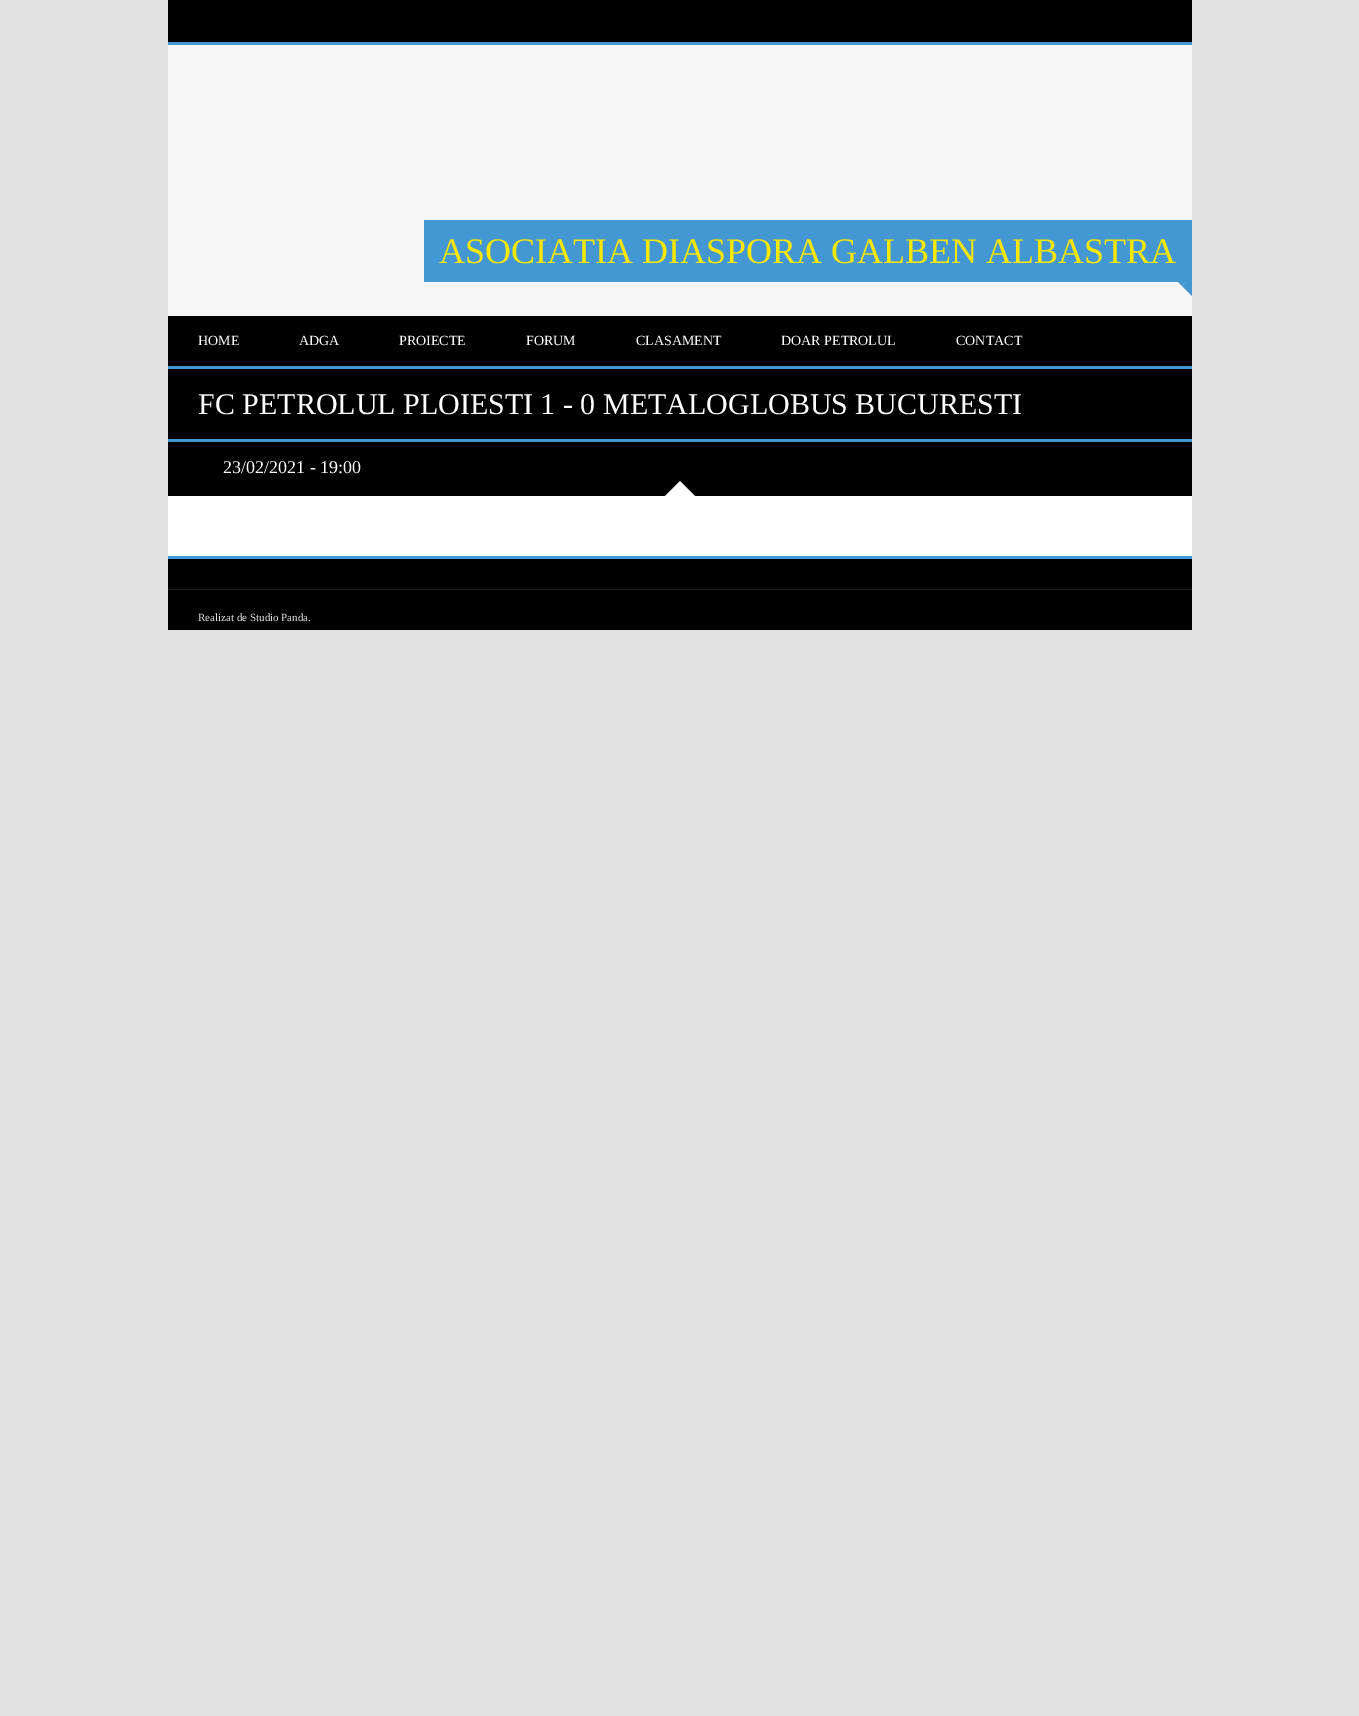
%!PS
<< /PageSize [1359 1716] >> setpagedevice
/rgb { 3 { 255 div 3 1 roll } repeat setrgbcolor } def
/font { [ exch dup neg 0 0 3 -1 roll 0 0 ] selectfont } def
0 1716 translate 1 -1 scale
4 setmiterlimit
225 225 225 rgb
0 0 1359 1716 rectfill
[
  [168 0 1024 42 0 0 0]
  [168 42 1024 3 67 151 211]
  [168 45 1024 271 246 246 246]
  [424 220 768 62 67 151 211]
] { aload pop rgb rectfill } forall
1172 276 moveto 1192 276 lineto 1182 286 lineto closepath fill
1192 276 moveto 1192 296 lineto 1182 286 lineto closepath fill
[
  [168 316 1024 50 0 0 0]
  [168 366 1024 3 67 151 211]
  [168 369 1024 70 0 0 0]
  [168 442 1024 54 0 0 0]
  [168 439 1024 3 67 151 211]
  [168 496 1024 60 255 255 255]
] { aload pop rgb rectfill } forall
695 496 moveto 665 496 lineto 680 481 lineto closepath fill
[
  [168 559 1024 71 0 0 0]
  [168 556 1024 3 67 151 211]
  [168 589 1024 1 26 26 26]
] { aload pop rgb rectfill } forall
/LiberationSerif-Regular 36 font
250 232 0 rgb
439 263 moveto (ASOCIATIA DIASPORA GALBEN ALBASTRA) show
/LiberationSerif-Regular 14 font
255 255 255 rgb
[
  [(HOME) 198 345]
  [(ADGA) 299 345]
  [(PROIECTE) 399 345]
  [(FORUM) 526 345]
  [(CLASAMENT) 636 345]
  [(DOAR PETROLUL) 781 345]
  [(CONTACT) 956 345]
] { aload pop moveto show } forall
/LiberationSerif-Regular 30 font
198 414 moveto (FC PETROLUL PLOIESTI 1 - 0 METALOGLOBUS BUCURESTI) show
/LiberationSerif-Regular 18 font
223 473 moveto (23/02/2021 - 19:00) show
/LiberationSerif-Regular 11 font
225 225 225 rgb
198 621 moveto (Realizat de Studio Panda.) show
showpage
